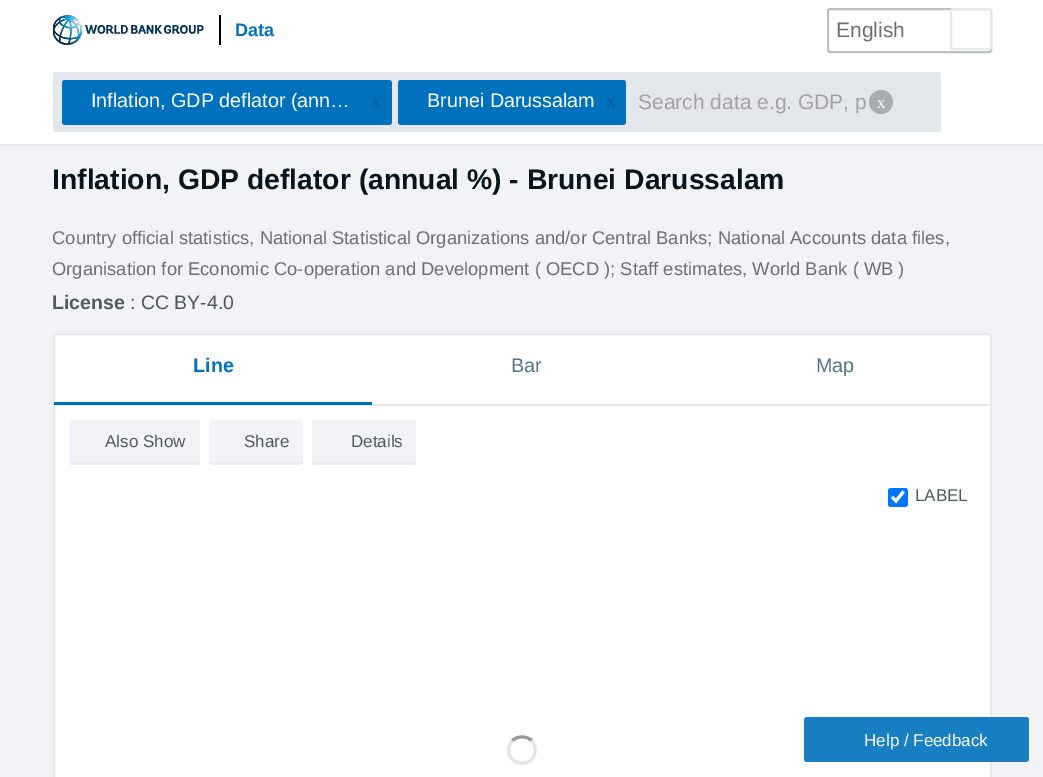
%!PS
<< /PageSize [1043 777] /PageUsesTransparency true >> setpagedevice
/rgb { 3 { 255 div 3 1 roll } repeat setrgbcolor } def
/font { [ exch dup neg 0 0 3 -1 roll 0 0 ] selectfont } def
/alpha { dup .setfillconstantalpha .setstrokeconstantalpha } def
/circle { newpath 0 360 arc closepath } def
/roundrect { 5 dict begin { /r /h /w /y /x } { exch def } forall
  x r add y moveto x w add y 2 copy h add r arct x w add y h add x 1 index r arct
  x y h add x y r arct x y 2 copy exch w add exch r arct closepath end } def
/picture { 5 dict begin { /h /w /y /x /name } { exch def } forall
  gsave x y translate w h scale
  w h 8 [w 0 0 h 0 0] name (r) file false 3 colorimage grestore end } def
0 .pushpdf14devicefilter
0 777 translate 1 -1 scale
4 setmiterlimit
242 243 246 rgb
0 0 1043 777 rectfill
255 255 255 rgb
0 0 1043 144 rectfill
(img/1.rgb) 53 15 151 30 picture
0 0 0 rgb
219 15 2 30 rectfill
192 192 192 rgb
2 setlinewidth
828 9 163 43 2 roundrect stroke
228 233 236 rgb
0 144 1043 2 rectfill
951 9 40 40 2 roundrect stroke
227 230 235 rgb
53 72 888 60 3 roundrect fill
0 113 188 rgb
62 80 330 45 3 roundrect fill
398 80 228 45 3 roundrect fill
170 173 176 rgb
881 102 12 circle fill
227 230 235 rgb
896 72 moveto 938 72 lineto 939.5 72 941 73.5 941 75 curveto 941 129 lineto 941 130.5 939.5 132 938 132 curveto 896 132 lineto closepath fill
255 255 255 rgb
54 334 937 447 2 roundrect gsave fill grestore
228 233 236 rgb
stroke
54 404 936 2 rectfill
0 113 188 rgb
54 402 318 3 rectfill
235 236 239 rgb
69 459 moveto 69 462 lineto 69 464 70 465 72 465 curveto 197 465 lineto 199 465 200 464 200 462 curveto 200 426 lineto 200 424 lineto 200 459 lineto 200 461 198 462 196 462 curveto 72 462 lineto 70 462 69 461 69 459 curveto closepath fill
242 243 246 rgb
69 420 131 42 3 roundrect fill
235 236 239 rgb
209 461 moveto 209 462 lineto 209 464 210 465 212 465 curveto 300 465 lineto 302 465 303 464 303 462 curveto 303 459 lineto 302 461 lineto 301 462 lineto 211 462 lineto closepath fill
242 243 246 rgb
209 420 94 42 3 roundrect fill
235 236 239 rgb
312 459 moveto 312 462 lineto 312 464 313 465 315 465 curveto 413 465 lineto 415 465 416 464 416 462 curveto 416 426 lineto 416 424 lineto 416 459 lineto 416 461 414 462 412 462 curveto 315 462 lineto 313 462 312 461 312 459 curveto closepath fill
242 243 246 rgb
312 420 104 42 3 roundrect fill
0 117 255 rgb
888 488 20 19 3 roundrect fill
255 255 255 rgb
3.1 setlinewidth
892 497 moveto 896 501 lineto 903.5 491.5 lineto stroke
153 153 153 rgb
3 setlinewidth
512.5 740.5 moveto 517.5 735.5 526.5 735.5 531.5 740.5 curveto stroke
0.1 alpha
0 0 0 rgb
531.5 740.5 moveto 534.5 743.5 536 748.5 535 752.5 curveto 532 768.5 508.5 766 508.5 750 curveto 508.5 746.5 510 743 512.5 740.5 curveto stroke
0.9 alpha
0 113 188 rgb
804 717 225 45 3 roundrect fill
/LiberationSans-Bold 18 font
1 alpha
235 36 moveto (Data) show
/LiberationSans-Regular 21 font
108 111 115 rgb
836 37 moveto (English) show
/LiberationSans-Regular 19.75 font
255 255 255 rgb
91 107 moveto (Inflation, GDP deflator \(ann…) show
/LiberationSerif-Regular 19.75 font
0 90 150 rgb
371 107 moveto (x) show
/LiberationSans-Regular 19.75 font
255 255 255 rgb
427 107 moveto (Brunei Darussalam) show
/LiberationSerif-Regular 19.75 font
0 90 150 rgb
606 107 moveto (x) show
/LiberationSans-Regular 21 font
160 162 165 rgb
638 109 moveto (Search data e.g. GDP, p) show
/LiberationSerif-Regular 17 font
255 255 255 rgb
877 108 moveto (x) show
/LiberationSans-Bold 28.3 font
8 21 30 rgb
52 189 moveto (Inflation, GDP deflator \(annual %\) - Brunei Darussalam) show
/LiberationSans-Regular 18.4 font
108 111 115 rgb
52 244 moveto (Country official statistics, National Statistical Organizations and/or Central Banks; National Accounts data files,) show
52 275 moveto (Organisation for Economic Co-operation and Development \( OECD \); Staff estimates, World Bank \( WB \)) show
/LiberationSans-Bold 19.5 font
80 89 94 rgb
52 309 moveto (License) show
/LiberationSans-Regular 19.5 font
130 309 moveto (: CC BY-4.0) show
/LiberationSans-Bold 19.75 font
0 113 188 rgb
193 372 moveto (Line) show
/LiberationSans-Regular 19.75 font
85 115 135 rgb
511 372 moveto (Bar) show
816 372 moveto (Map) show
/LiberationSans-Regular 17 font
80 89 94 rgb
[
  [(Also Show) 105 447]
  [(Share) 244 447]
  [(Details) 351 447]
  [(LABEL) 915 501]
] { aload pop moveto show } forall
255 255 255 rgb
864 746 moveto (Help / Feedback) show
.poppdf14devicefilter showpage
